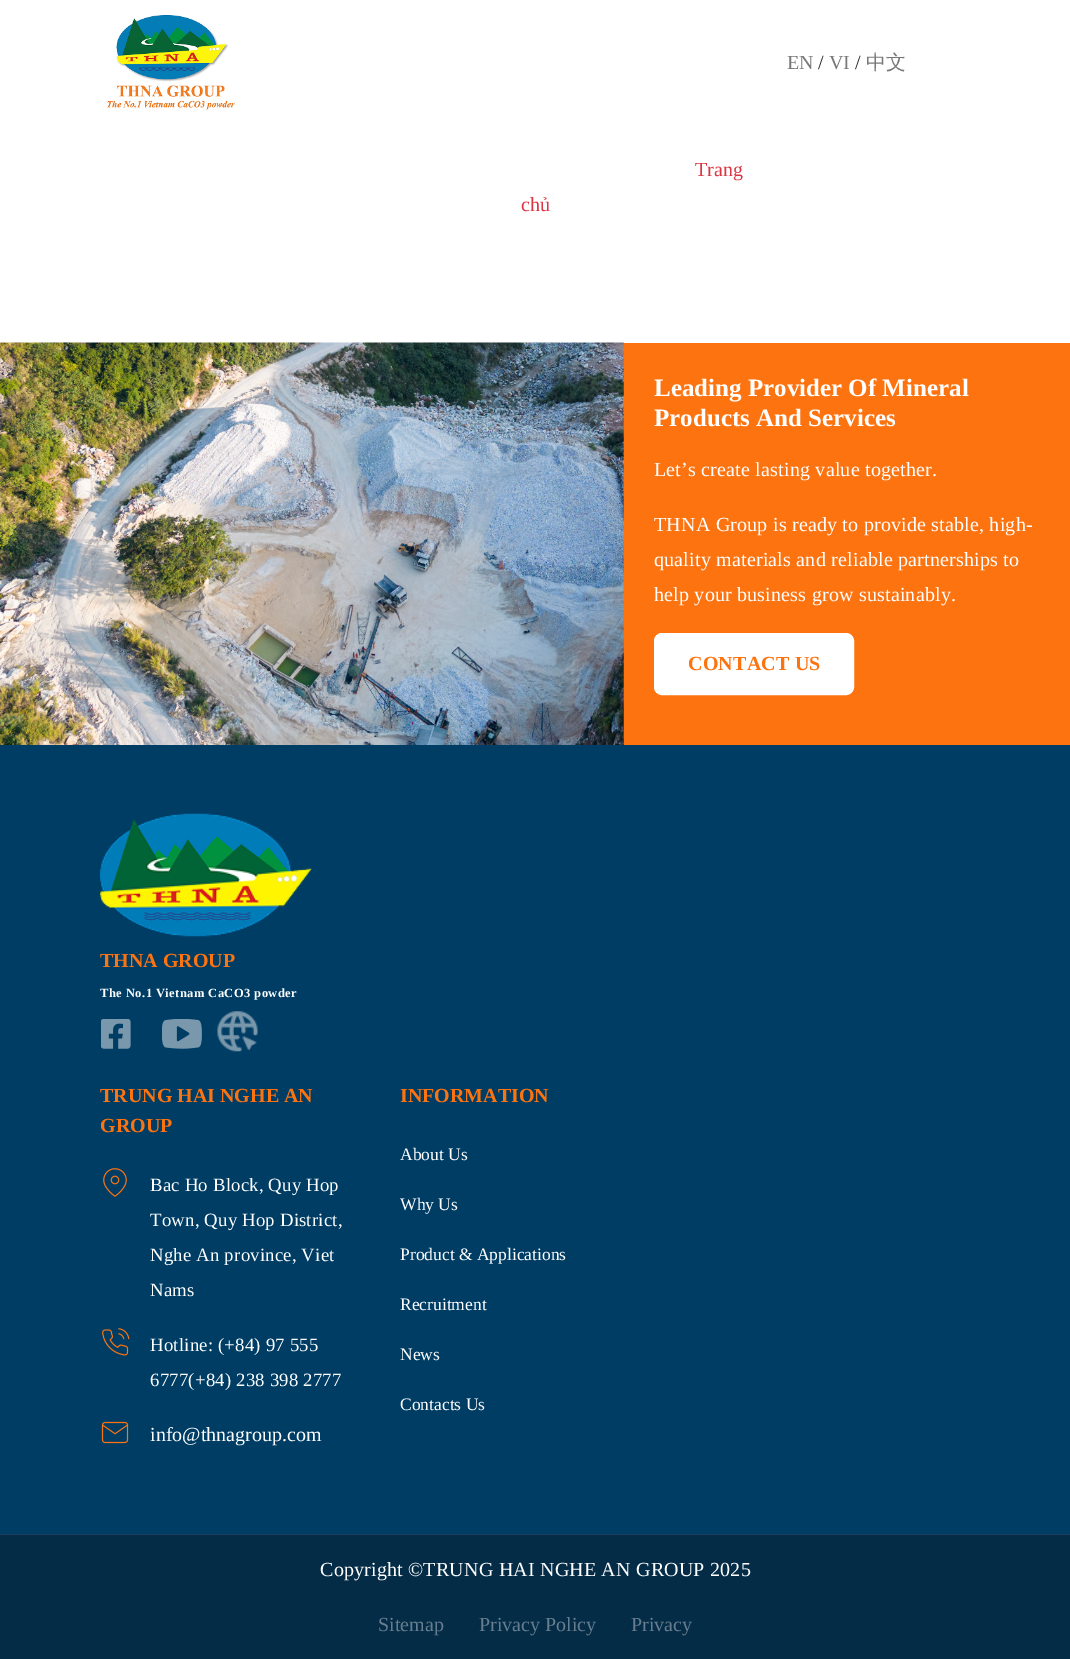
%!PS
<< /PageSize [1070 1659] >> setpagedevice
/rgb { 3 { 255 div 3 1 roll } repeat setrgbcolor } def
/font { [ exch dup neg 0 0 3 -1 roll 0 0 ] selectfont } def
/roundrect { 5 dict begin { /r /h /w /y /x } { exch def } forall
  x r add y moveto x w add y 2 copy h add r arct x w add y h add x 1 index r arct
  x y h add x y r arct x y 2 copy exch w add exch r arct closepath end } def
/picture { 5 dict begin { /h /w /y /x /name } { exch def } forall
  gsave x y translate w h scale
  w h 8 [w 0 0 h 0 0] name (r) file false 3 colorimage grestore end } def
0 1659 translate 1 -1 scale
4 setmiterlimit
255 255 255 rgb
0 0 1070 1659 rectfill
(img/1.rgb) 107 15 128 95 picture
252 115 16 rgb
623 343 447 402 rectfill
(img/2.rgb) 0 342 624 403 picture
255 255 255 rgb
654.5 633.5 199 61 7.5 roundrect gsave fill grestore
stroke
0 61 101 rgb
0 745 1070 789 rectfill
(img/3.rgb) 100 813 212 124 picture
(img/4.rgb) 101 1019 30 30 picture
(img/5.rgb) 162 1019 40 30 picture
(img/6.rgb) 217 1011 41 41 picture
(img/7.rgb) 103 1168 24 29 picture
(img/8.rgb) 102 1328 28 28 picture
(img/9.rgb) 101 1421 28 23 picture
4 44 71 rgb
0 1535 1070 124 rectfill
27 63 88 rgb
0 1534 1070 1 rectfill
/LiberationSerif-Regular 20 font
120 120 120 rgb
787 69 moveto (EN) show
33 37 41 rgb
818 69 moveto (/) show
120 120 120 rgb
829 69 moveto (VI) show
33 37 41 rgb
855 69 moveto (/) show
/WenQuanYiZenHei-Medium 20 font
120 120 120 rgb
866 69 moveto (中文) show
/LiberationSerif-Regular 20 font
220 53 69 rgb
695 176 moveto (Trang) show
521 211 moveto (chủ) show
/LiberationSerif-Bold 25 font
255 255 255 rgb
654 396 moveto (Leading Provider Of Mineral) show
654 426 moveto (Products And Services) show
/LiberationSerif-Regular 20 font
654 476 moveto 0.2 0 (Let’s create lasting value together.) ashow
654 531 moveto 0.2 0 (THNA Group is ready to provide stable, high-) ashow
654 566 moveto 0.2 0 (quality materials and reliable partnerships to) ashow
654 601 moveto 0.2 0 (help your business grow sustainably.) ashow
/LiberationSerif-Bold 20 font
252 115 16 rgb
688 670 moveto 0.2 0 (CONTACT US) ashow
100 967 moveto (THNA GROUP) show
/LiberationSerif-Bold 12.5 font
255 255 255 rgb
100 997 moveto 0.45 0 (The No.1 Vietnam CaCO3 powder) ashow
/LiberationSerif-Bold 20 font
252 115 16 rgb
100 1102 moveto (TRUNG HAI NGHE AN) show
100 1132 moveto (GROUP) show
/LiberationSerif-Regular 18.75 font
255 255 255 rgb
150 1191 moveto 0.2 0 (Bac Ho Block, Quy Hop) ashow
150 1226 moveto 0.2 0 (Town, Quy Hop District,) ashow
150 1261 moveto 0.2 0 (Nghe An province, Viet) ashow
150 1296 moveto 0.2 0 (Nams) ashow
150 1351 moveto 0.2 0 (Hotline: \(+84\) 97 555) ashow
150 1386 moveto 0.2 0 (6777\(+84\) 238 398 2777) ashow
/LiberationSerif-Regular 20 font
150 1441 moveto (info@thnagroup.com) show
/LiberationSerif-Bold 20 font
252 115 16 rgb
400 1102 moveto (INFORMATION) show
/LiberationSerif-Regular 17.5 font
255 255 255 rgb
[
  [(About Us) 400 1160]
  [(Why Us) 400 1210]
  [(Product & Applications) 400 1260]
  [(Recruitment) 400 1310]
  [(News) 400 1360]
  [(Contacts Us) 400 1410]
] { aload pop moveto show } forall
/LiberationSerif-Regular 20 font
320 1576 moveto 0.2 0 (Copyright ©TRUNG HAI NGHE AN GROUP 2025) ashow
102 126 143 rgb
[
  [(Sitemap) 378 1631]
  [(Privacy Policy) 479 1631]
  [(Privacy) 631 1631]
] { aload pop moveto show } forall
showpage
